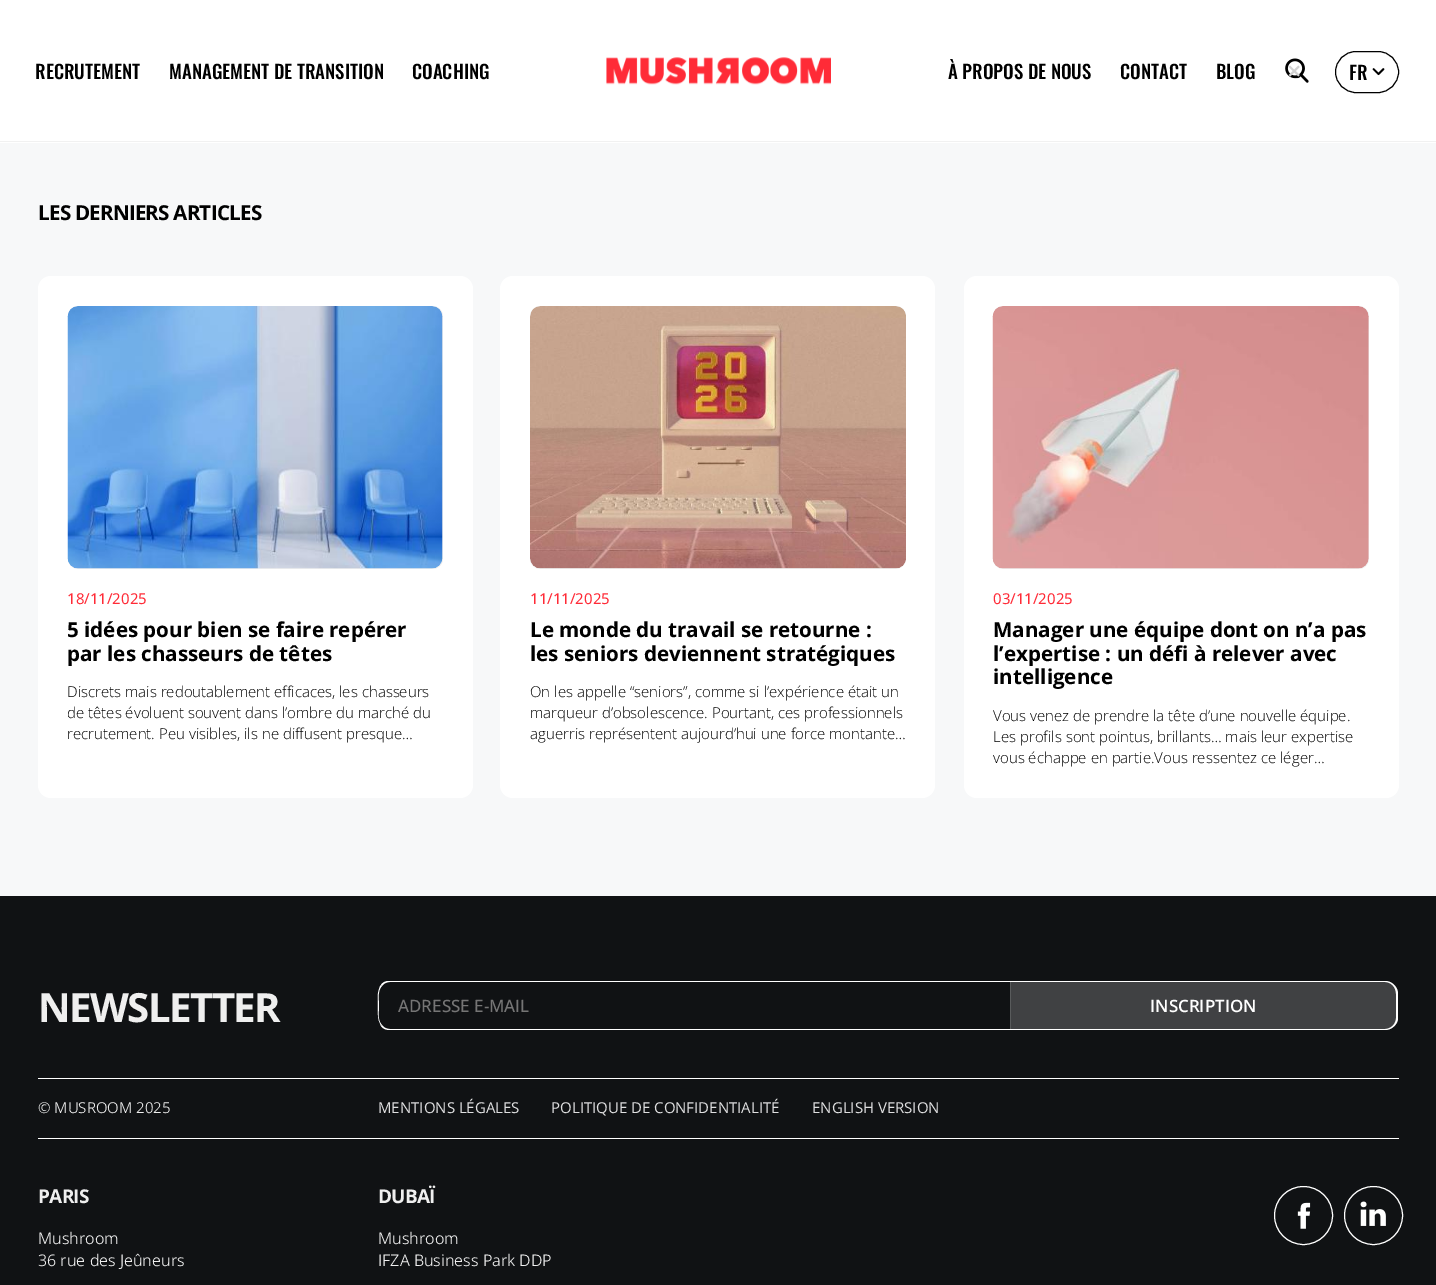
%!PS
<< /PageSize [1436 1285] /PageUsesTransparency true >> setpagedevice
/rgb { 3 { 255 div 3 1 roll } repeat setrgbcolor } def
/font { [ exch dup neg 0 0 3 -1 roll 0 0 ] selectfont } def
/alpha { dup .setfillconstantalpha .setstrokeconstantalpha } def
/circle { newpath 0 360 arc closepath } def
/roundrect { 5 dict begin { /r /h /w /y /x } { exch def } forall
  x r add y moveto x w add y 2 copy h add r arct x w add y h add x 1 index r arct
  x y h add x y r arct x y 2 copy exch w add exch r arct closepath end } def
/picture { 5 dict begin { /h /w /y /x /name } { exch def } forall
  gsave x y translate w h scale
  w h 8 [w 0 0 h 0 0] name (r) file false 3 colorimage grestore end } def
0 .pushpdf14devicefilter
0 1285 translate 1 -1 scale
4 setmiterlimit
247 248 249 rgb
0 0 1436 1285 rectfill
255 255 255 rgb
0 0 1436 143 rectfill
241 241 241 rgb
0 141 1436 1 rectfill
(img/1.rgb) 606 57 225 28 picture
(img/2.rgb) 1285 58 24 25 picture
(img/3.rgb) 1372 68 13 8 picture
0 0 0 rgb
1335.5 51.5 63 41 20.5 roundrect stroke
255 255 255 rgb
38 276 435 522 13 roundrect fill
238 238 238 rgb
68 306 375 263 10 roundrect fill
(img/4.rgb) 67 306 376 263 picture
255 255 255 rgb
500 276 435 522 13 roundrect fill
238 238 238 rgb
530 306 376 263 10 roundrect fill
(img/5.rgb) 530 306 376 263 picture
255 255 255 rgb
964 276 435 522 13 roundrect fill
238 238 238 rgb
993 306 376 263 10 roundrect fill
(img/6.rgb) 992 306 377 263 picture
16 18 20 rgb
0 896 1436 389 rectfill
255 255 255 rgb
390 982 moveto 387 982 384 983 382 986 curveto 381 985 lineto 382 983 384 982 387 981 curveto 1011 981 lineto 1010 982 lineto closepath fill
48 50 51 rgb
1011 982 moveto 1011 1030 lineto 1010 1029 lineto 1010 982 lineto closepath fill
255 255 255 rgb
390 1030 moveto 1011 1030 lineto 1010 1029 lineto 390 1029 lineto 387 1029 384 1028 382 1025 curveto 381 1026 lineto 383 1029 386 1030 390 1030 curveto closepath fill
381 1026 moveto 379 1021 lineto 377 1016 378 998 378 993 curveto 379 990 379 987 381 985 curveto 382 986 lineto 377 991 379 1000 379 1006 curveto 379 1012 377 1020 382 1025 curveto closepath fill
0.2 alpha
1010 981 moveto 1385 981 lineto 1392 981 1398 987 1398 994 curveto 1398 1017 lineto 1398 1024 1392 1030 1385 1030 curveto 1010 1030 lineto closepath fill
1 alpha
1010 981 moveto 1385 981 lineto 1392 981 1398 987 1398 994 curveto 1398 1018 lineto 1398 1024 1392 1030 1385 1030 curveto 1010 1030 lineto closepath 1010 982 moveto 1385 982 lineto 1391 982 1396 987 1396 994 curveto 1396 1018 lineto 1396 1024 1391 1029 1385 1029 curveto 1010 1029 lineto closepath eofill
38 1078 1361 1 rectfill
38 1138 1361 1 rectfill
1303.5 1215.5 29 circle stroke
(img/7.rgb) 1297 1202 14 27 picture
1373.5 1215.5 29 circle stroke
(img/8.rgb) 1360 1201 26 25 picture
/Oswald-Medium 18.75 font
0 0 0 rgb
[
  [(RECRUTEMENT) 35 79]
  [(MANAGEMENT DE TRANSITION) 169 79]
  [(COACHING) 412 79]
  [(À PROPOS DE NOUS) 948 79]
  [(CONTACT) 1120 79]
  [(BLOG) 1216 79]
] { aload pop moveto show } forall
/Oswald-Light 41 font
209 209 209 rgb
1287 88 moveto (×) show
/Oswald-Medium 18.75 font
0 0 0 rgb
1349 80 moveto (FR) show
/OpenSans-Bold 20.6 font
38 220 moveto -0.8 0 (LES DERNIERS ARTICLES) ashow
/OpenSans-Regular 15 font
255 43 55 rgb
67 604 moveto (18/11/2025) show
/OpenSans-Bold 20.6 font
0 0 0 rgb
67 637 moveto (5 idées pour bien se faire repérer) show
67 661 moveto (par les chasseurs de têtes) show
/OpenSans-Light 15 font
67 697 moveto (Discrets mais redoutablement efficaces, les chasseurs) show
gsave
68 681 375 64 rectclip
67 718 moveto (de têtes évoluent souvent dans l’ombre du marché du) show
grestore
67 739 moveto (recrutement. Peu visibles, ils ne diffusent presque…) show
/OpenSans-Regular 15 font
255 43 55 rgb
530 604 moveto (11/11/2025) show
/OpenSans-Bold 20.6 font
0 0 0 rgb
530 637 moveto (Le monde du travail se retourne :) show
530 661 moveto (les seniors deviennent stratégiques) show
/OpenSans-Light 15 font
[
  [(On les appelle “seniors”, comme si l’expérience était un) 530 697]
  [(marqueur d’obsolescence. Pourtant, ces professionnels) 530 718]
  [(aguerris représentent aujourd’hui une force montante…) 530 739]
] { aload pop moveto show } forall
/OpenSans-Regular 15 font
255 43 55 rgb
993 604 moveto (03/11/2025) show
/OpenSans-Bold 20.6 font
0 0 0 rgb
[
  [(Manager une équipe dont on n’a pas) 993 637]
  [(l’expertise : un défi à relever avec) 993 661]
  [(intelligence) 993 684]
] { aload pop moveto show } forall
/OpenSans-Light 15 font
[
  [(Vous venez de prendre la tête d’une nouvelle équipe.) 993 721]
  [(Les profils sont pointus, brillants… mais leur expertise) 993 742]
  [(vous échappe en partie.Vous ressentez ce léger…) 993 763]
] { aload pop moveto show } forall
/OpenSans-Bold 40.25 font
239 239 239 rgb
38 1022 moveto -1.6 0 (NEWSLETTER) ashow
/OpenSans-Medium 17 font
117 117 117 rgb
398 1012 moveto (ADRESSE E-MAIL) show
/OpenSans-SemiBold 17 font
255 255 255 rgb
1150 1012 moveto (INSCRIPTION) show
/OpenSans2-Light 15 font
239 239 239 rgb
38 1113 moveto (© MUSROOM 2025) show
/OpenSans2-Regular 15 font
223 223 224 rgb
[
  [(MENTIONS LÉGALES) 378 1113]
  [(POLITIQUE DE CONFIDENTIALITÉ) 551 1113]
  [(ENGLISH VERSION) 812 1113]
] { aload pop moveto show } forall
/OpenSans-Bold 19 font
239 239 239 rgb
38 1203 moveto -0.75 0 (PARIS) ashow
/OpenSans2-Light 16 font
38 1244 moveto (Mushroom) show
38 1266 moveto (36 rue des Jeûneurs) show
/OpenSans-Bold 19 font
378 1203 moveto -0.75 0 (DUBAÏ) ashow
/OpenSans2-Light 16 font
378 1244 moveto (Mushroom) show
378 1266 moveto (IFZA Business Park DDP) show
.poppdf14devicefilter showpage
